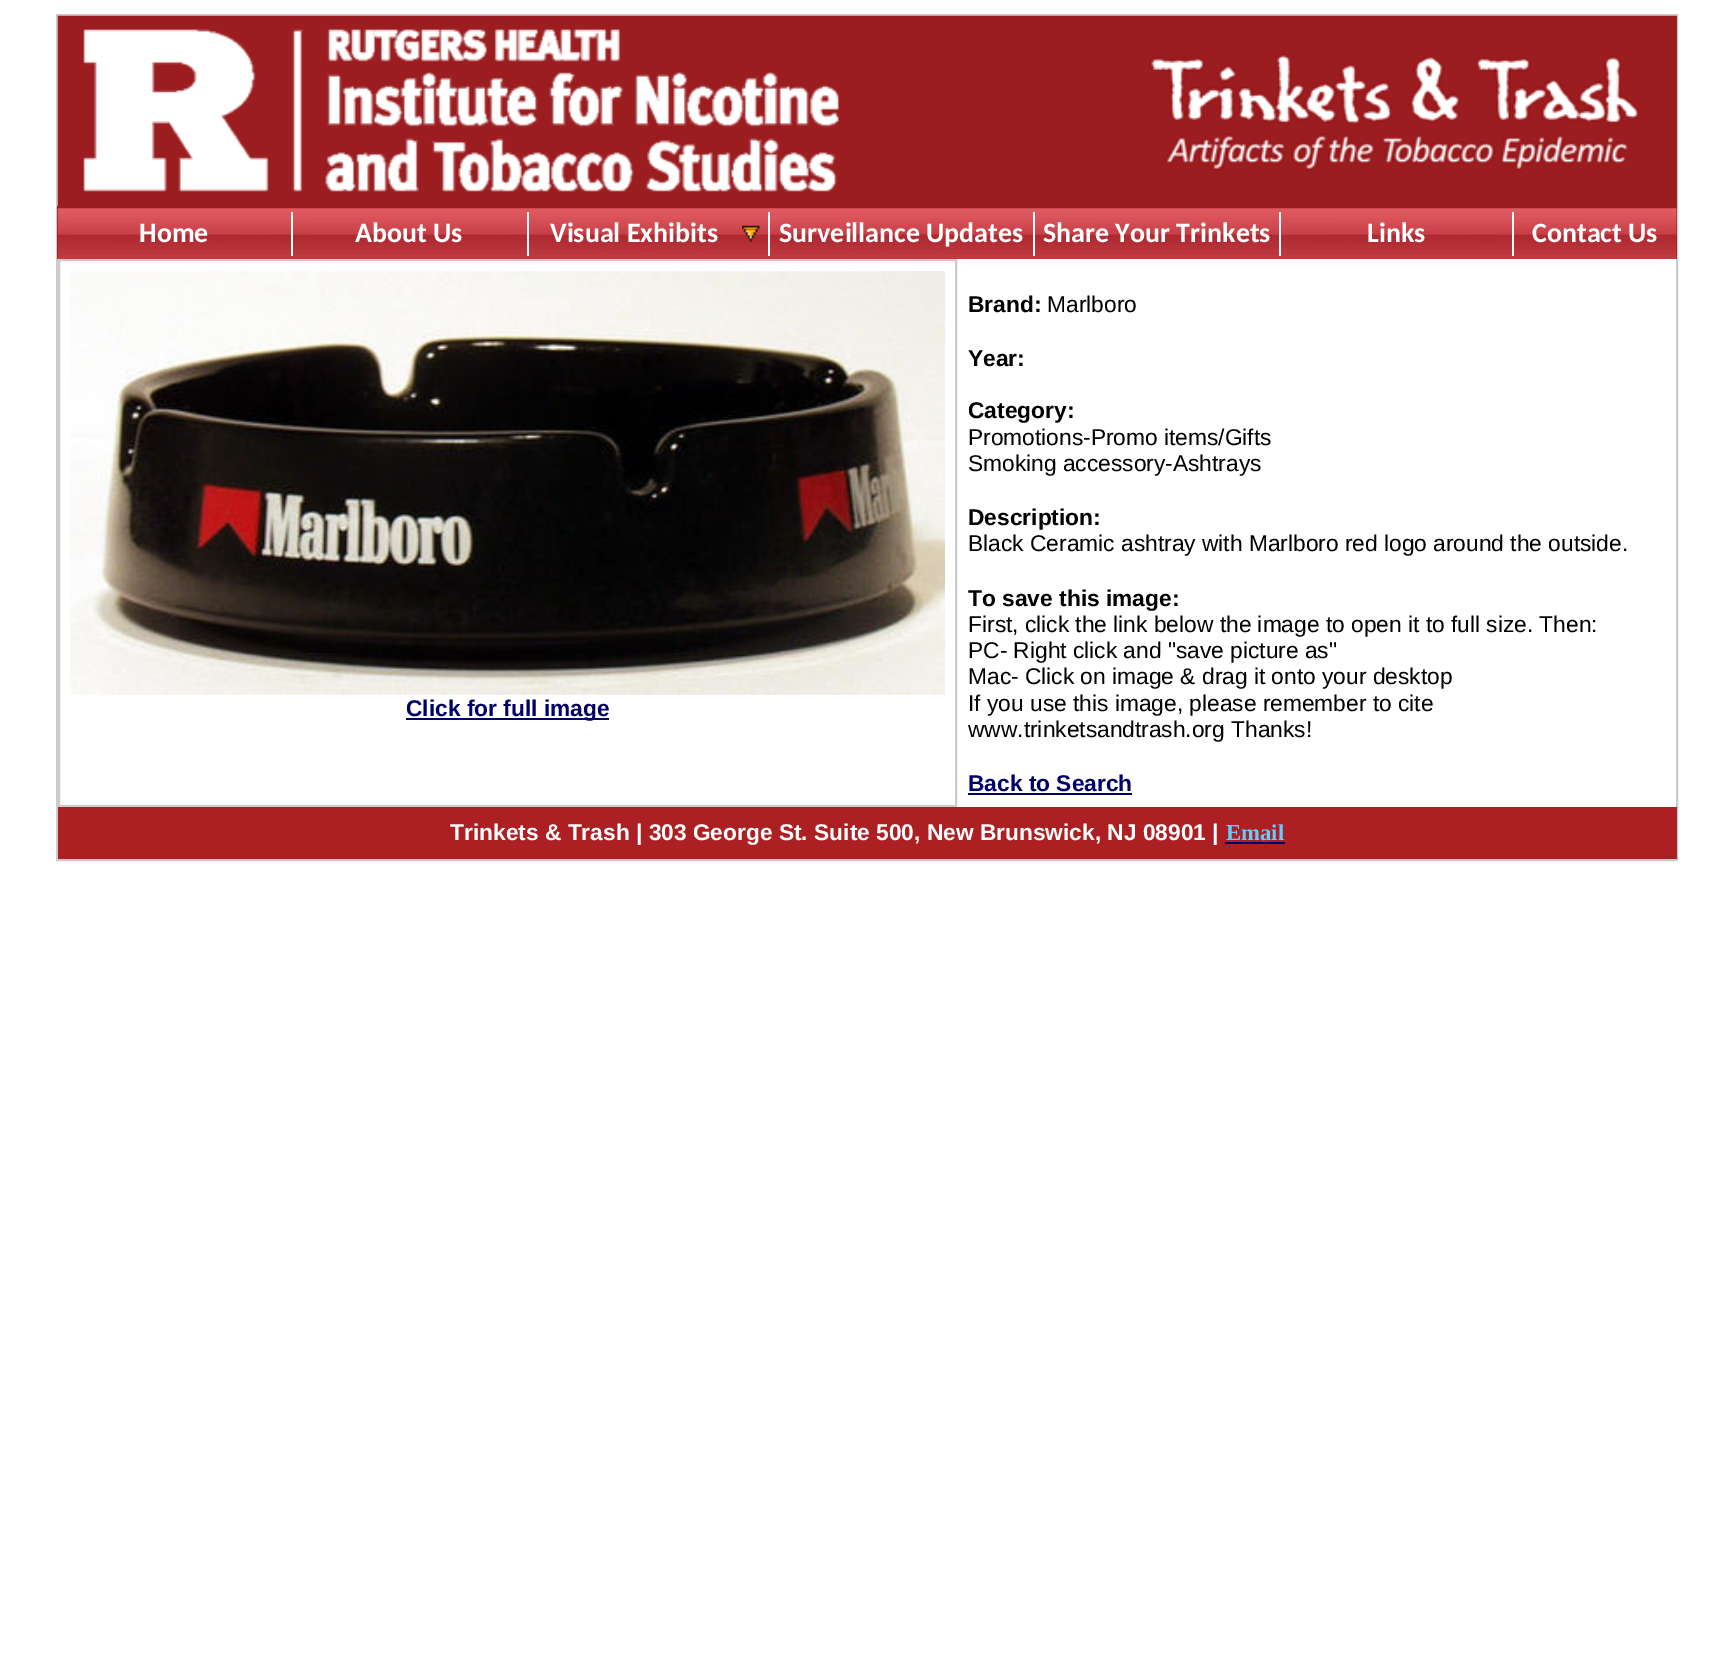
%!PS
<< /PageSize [1733 1674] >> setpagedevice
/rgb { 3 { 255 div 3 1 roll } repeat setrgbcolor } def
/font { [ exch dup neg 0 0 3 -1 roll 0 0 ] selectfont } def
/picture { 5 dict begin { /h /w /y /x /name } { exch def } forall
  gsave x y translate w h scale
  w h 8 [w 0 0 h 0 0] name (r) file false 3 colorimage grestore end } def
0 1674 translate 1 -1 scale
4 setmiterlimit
255 255 255 rgb
0 0 1733 1674 rectfill
204 204 204 rgb
2 setlinewidth
57 15 1620 845 rectstroke
172 32 35 rgb
1676 16 1 190 rectfill
(img/1.rgb) 57 15 1620 191 picture
155 29 32 rgb
57 206 1620 53 rectfill
(img/2.rgb) 57 208 1620 51 picture
255 255 255 rgb
291 212 2 44 rectfill
527 212 2 44 rectfill
(img/3.rgb) 742 225 18 17 picture
[
  [768 212 2 44 255 255 255]
  [1033 212 2 44 255 255 255]
  [1279 212 2 44 255 255 255]
  [1512 212 2 44 255 255 255]
] { aload pop rgb rectfill } forall
204 204 204 rgb
59 260 897 546 rectstroke
(img/4.rgb) 70 271 875 424 picture
[
  [406 718 203 2 0 0 102]
  [968 793 164 2 0 0 102]
  [58 807 1619 52 172 32 35]
  [1225 842 60 2 0 0 102]
] { aload pop rgb rectfill } forall
/Carlito-Bold 28 font
255 255 255 rgb
[
  [(Home) 139 242]
  [(About Us) 355 242]
  [(Visual Exhibits) 550 242]
  [(Surveillance Updates) 779 242]
  [(Share Your Trinkets) 1043 242]
  [(Links) 1367 242]
  [(Contact Us) 1532 242]
] { aload pop moveto show } forall
/LiberationSans-Bold 22.75 font
0 0 102 rgb
406 716 moveto (Click for full image) show
0 0 0 rgb
968 312 moveto (Brand:) show
/LiberationSans-Regular 22.75 font
1047 312 moveto (Marlboro) show
/LiberationSans-Bold 22.75 font
968 366 moveto (Year:) show
968 418 moveto (Category:) show
/LiberationSans-Regular 22.75 font
968 445 moveto (Promotions-Promo items/Gifts) show
968 471 moveto (Smoking accessory-Ashtrays) show
/LiberationSans-Bold 22.75 font
968 525 moveto (Description:) show
/LiberationSans-Regular 22.75 font
968 551 moveto (Black Ceramic ashtray with Marlboro red logo around the outside.) show
/LiberationSans-Bold 22.75 font
968 606 moveto (To save this image:) show
/LiberationSans-Regular 22.75 font
[
  [(First, click the link below the image to open it to full size. Then:) 968 632]
  [(PC- Right click and "save picture as") 968 658]
  [(Mac- Click on image & drag it onto your desktop) 968 684]
  [(If you use this image, please remember to cite) 968 711]
  [(www.trinketsandtrash.org Thanks!) 968 737]
] { aload pop moveto show } forall
/LiberationSans-Bold 22.75 font
0 0 102 rgb
968 791 moveto (Back to Search) show
255 255 255 rgb
450 840 moveto (Trinkets & Trash | 303 George St. Suite 500, New Brunswick, NJ 08901 |) show
/LiberationSerif-Bold 22.75 font
102 204 255 rgb
1226 840 moveto (Email) show
showpage
